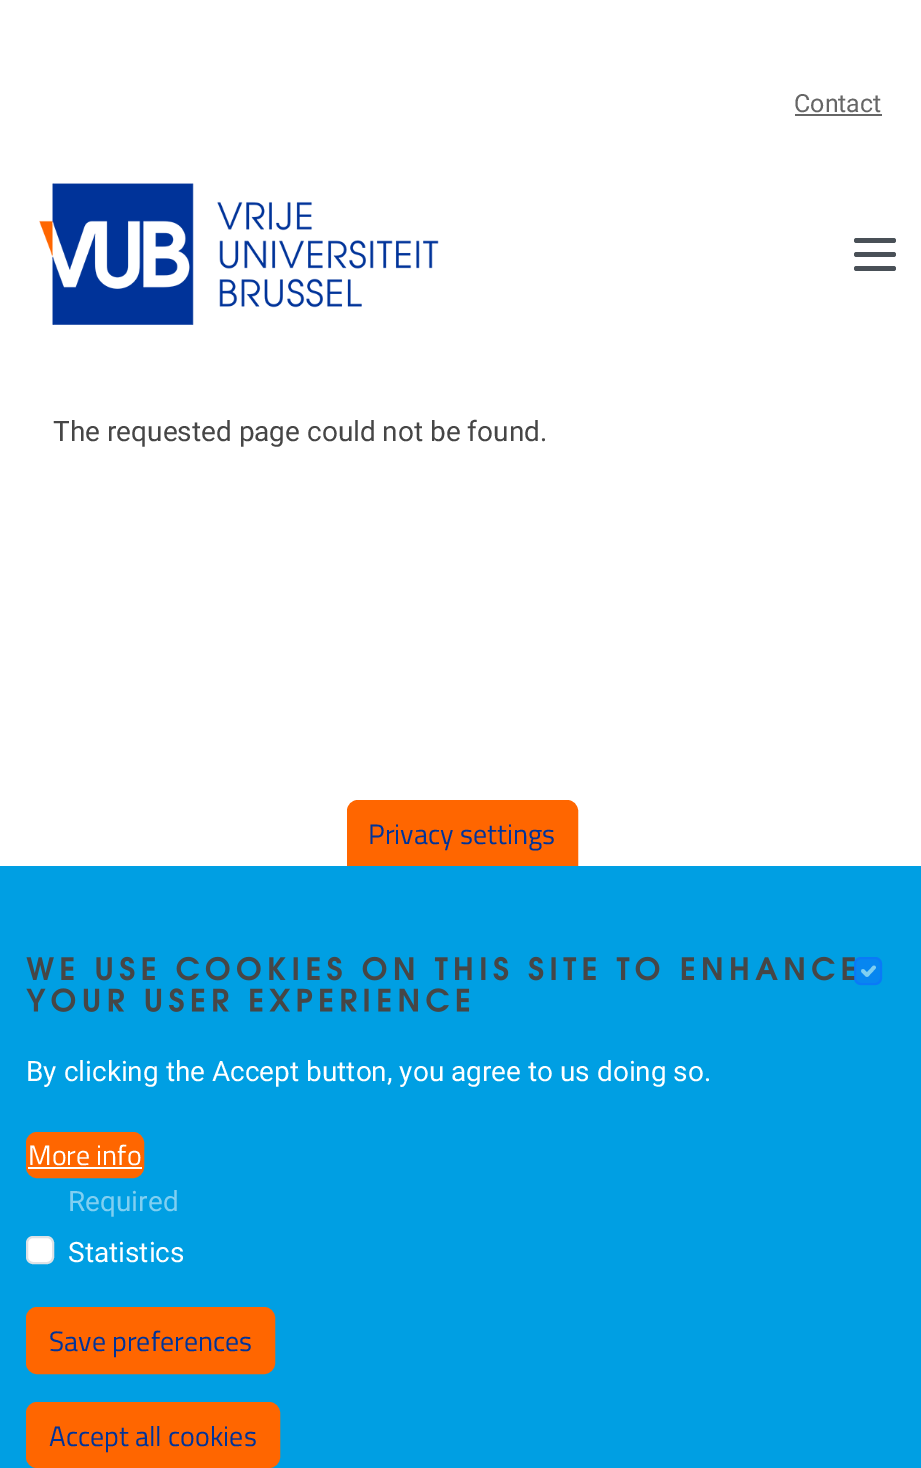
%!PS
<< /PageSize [921 1468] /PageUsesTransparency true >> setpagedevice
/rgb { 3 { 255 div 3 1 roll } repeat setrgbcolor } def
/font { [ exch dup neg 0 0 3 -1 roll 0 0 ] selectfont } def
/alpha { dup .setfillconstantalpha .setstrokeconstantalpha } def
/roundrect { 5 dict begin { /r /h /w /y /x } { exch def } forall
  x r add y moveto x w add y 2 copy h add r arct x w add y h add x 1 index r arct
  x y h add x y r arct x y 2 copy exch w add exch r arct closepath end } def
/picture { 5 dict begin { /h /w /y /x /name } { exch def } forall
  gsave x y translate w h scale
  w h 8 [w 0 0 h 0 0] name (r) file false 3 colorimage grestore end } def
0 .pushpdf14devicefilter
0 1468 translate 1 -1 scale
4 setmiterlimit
255 255 255 rgb
0 0 921 1468 rectfill
102 102 102 rgb
795 114 87 2 rectfill
(img/1.rgb) 39 183 400 142 picture
73 80 87 rgb
854 252 42 5 2.5 roundrect fill
854 238 42 5 2.5 roundrect fill
854 266 42 5 2.5 roundrect fill
255 102 0 rgb
358 801 moveto 567 801 lineto 572.5 801 577 805.5 577 811 curveto 577 865 lineto 348 865 lineto 348 811 lineto 348 805.5 352.5 801 358 801 curveto closepath gsave fill grestore
2 setlinewidth
stroke
0 159 227 rgb
0 866 921 602 rectfill
(img/2.rgb) 26 956 829 25 picture
(img/3.rgb) 26 988 444 24 picture
255 102 0 rgb
27 1133 116 44 10 roundrect gsave fill grestore
stroke
255 255 255 rgb
28 1167 114 2 rectfill
0.5 alpha
13 110 253 rgb
854 957 28 28 7 roundrect fill
1 alpha
128 207 241 rgb
3.7 setlinewidth
1 setlinecap
1 setlinejoin
863 971 moveto 867 975 lineto 874 967.5 lineto stroke
0.5 alpha
13 110 253 rgb
2 setlinewidth
0 setlinecap
0 setlinejoin
855 958 26 26 6 roundrect stroke
1 alpha
255 255 255 rgb
27 1237 26 26 6 roundrect gsave fill grestore
222 226 230 rgb
stroke
255 102 0 rgb
27 1308 247 65 10 roundrect gsave fill grestore
stroke
27 1403 252 64 10 roundrect gsave fill grestore
stroke
/Roboto-Regular 25 font
102 102 102 rgb
794 112 moveto (Contact) show
/Roboto-Regular 28 font
70 70 70 rgb
53 441 moveto (The requested page could not be found.) show
/TitilliumWeb-Regular 28 font
0 51 153 rgb
368 844 moveto (Privacy settings) show
/Roboto-Regular 28 font
255 255 255 rgb
26 1081 moveto (By clicking the Accept button, you agree to us doing so.) show
/TitilliumWeb-Regular 28 font
28 1165 moveto (More info) show
/Roboto-Regular 28 font
128 207 241 rgb
68 1211 moveto (Required) show
255 255 255 rgb
68 1262 moveto (Statistics) show
/TitilliumWeb-Regular 28 font
0 51 153 rgb
49 1351 moveto (Save preferences) show
49 1446 moveto (Accept all cookies) show
.poppdf14devicefilter showpage
